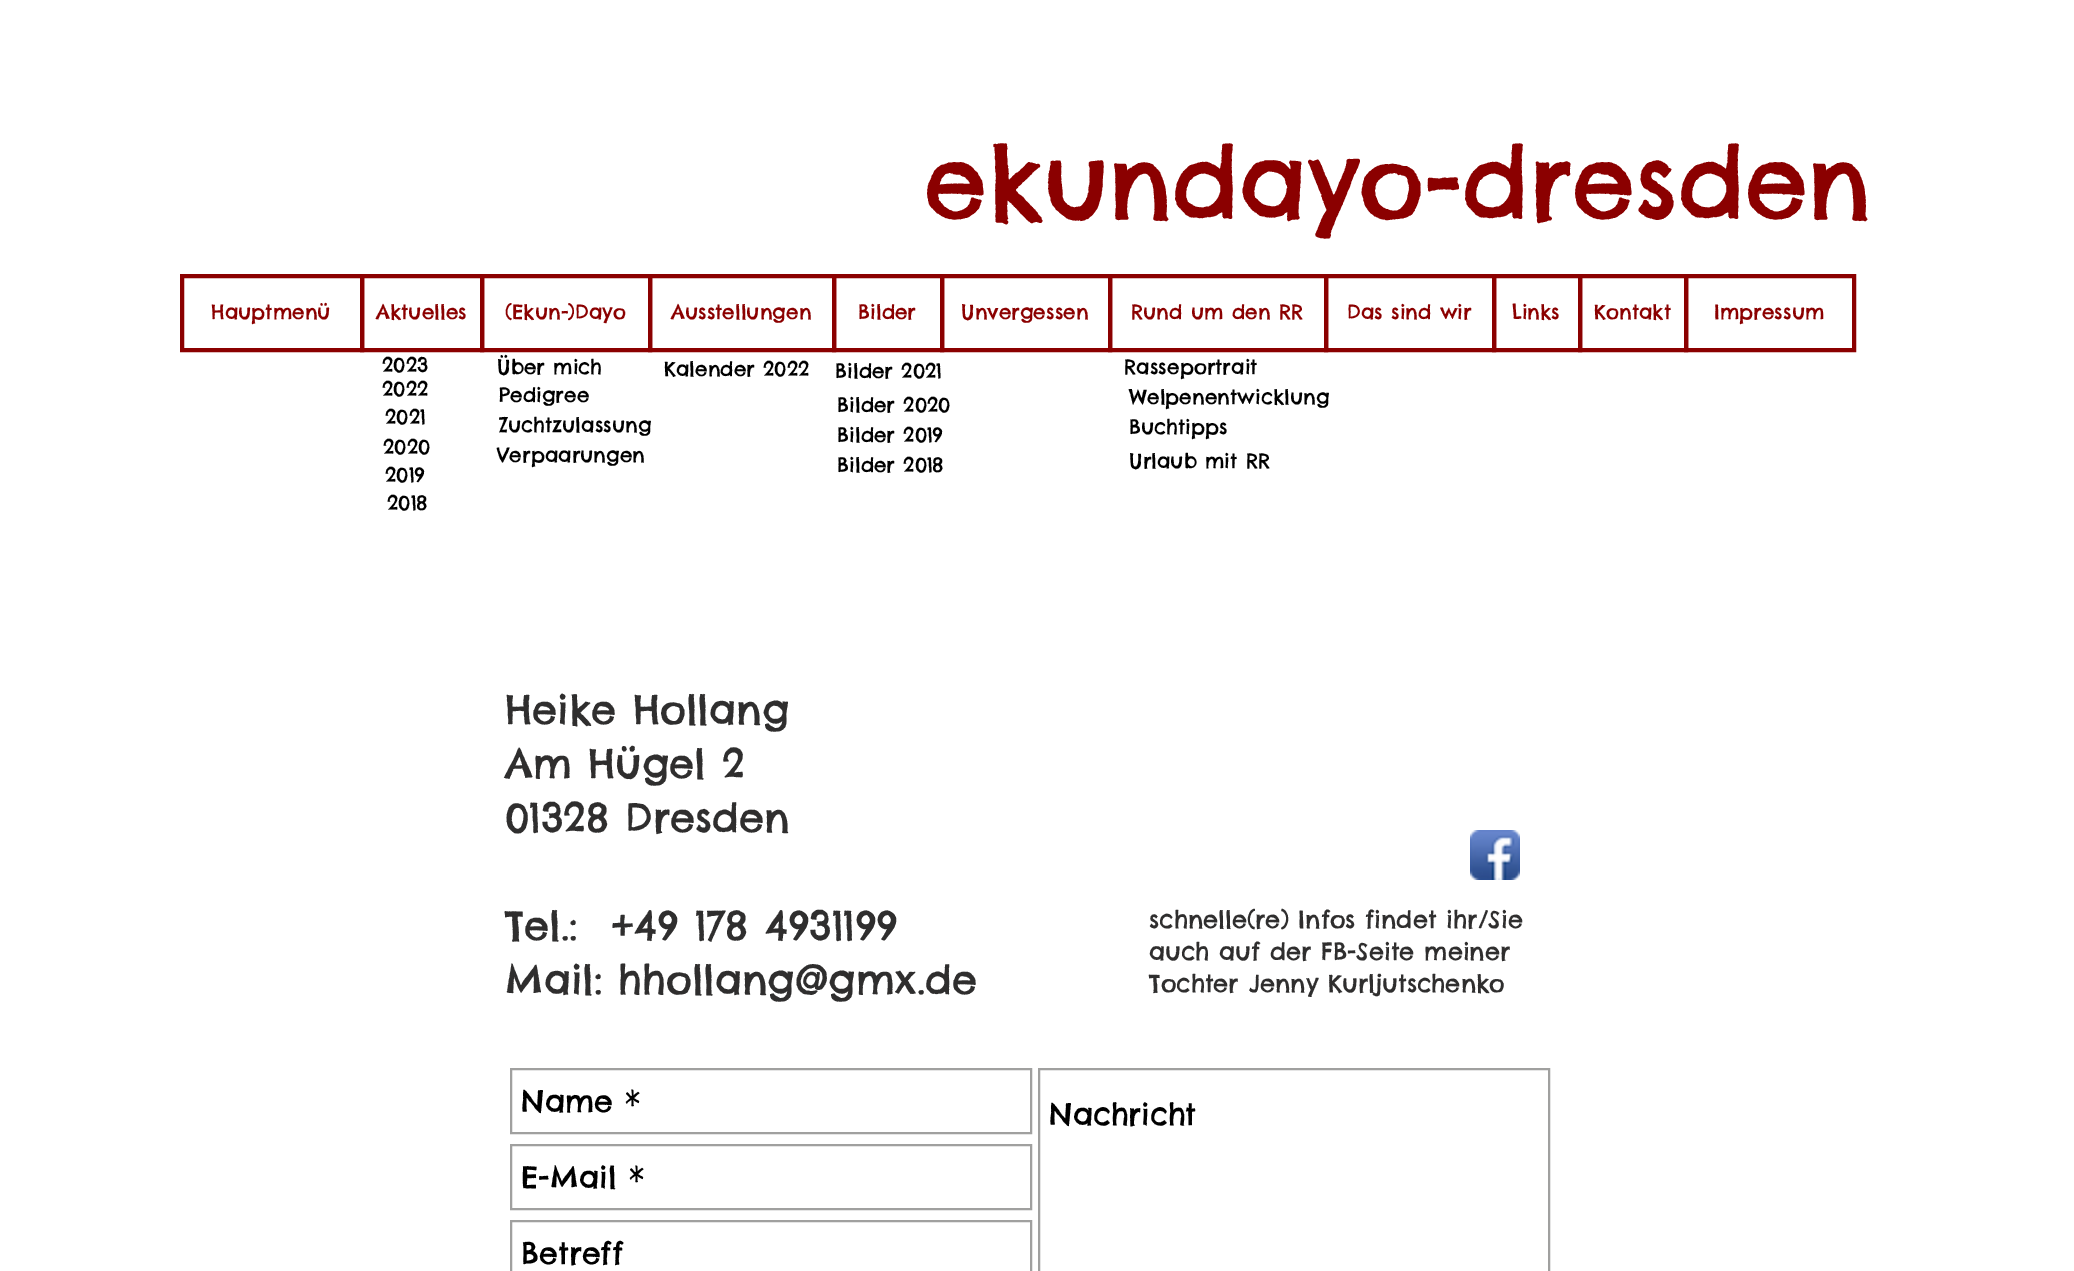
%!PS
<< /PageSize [2074 1271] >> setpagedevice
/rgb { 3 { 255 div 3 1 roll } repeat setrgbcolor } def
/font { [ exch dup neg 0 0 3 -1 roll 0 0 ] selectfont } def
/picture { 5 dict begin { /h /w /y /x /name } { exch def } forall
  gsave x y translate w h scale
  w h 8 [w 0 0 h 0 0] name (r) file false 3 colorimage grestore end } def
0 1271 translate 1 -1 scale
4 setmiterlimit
255 255 255 rgb
0 0 2074 1271 rectfill
139 0 0 rgb
4 setlinewidth
182 276 180 74 rectstroke
362 276 120 74 rectstroke
482 276 168 74 rectstroke
650 276 184 74 rectstroke
834 276 108 74 rectstroke
942 276 168 74 rectstroke
1110 276 216 74 rectstroke
1326 276 168 74 rectstroke
1494 276 86 74 rectstroke
1580 276 106 74 rectstroke
1686 276 168 74 rectstroke
(img/1.rgb) 1470 830 50 50 picture
160 160 159 rgb
2 setlinewidth
511 1069 520 64 rectstroke
1039 1069 510 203 rectstroke
511 1145 520 64 rectstroke
511 1221 520 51 rectstroke
/ChelseaMarket-Regular 100 font
139 0 0 rgb
924 218 moveto (ekundayo-dresden) show
/ChelseaMarket-Regular 20 font
[
  [(Hauptmenü) 211 319]
  [(Aktuelles) 376 319]
  [(\(Ekun-\)Dayo) 505 319]
  [(Ausstellungen) 671 319]
  [(Bilder) 858 319]
  [(Unvergessen) 961 319]
  [(Rund um den RR) 1131 319]
  [(Das sind wir) 1347 319]
  [(Links) 1512 319]
  [(Kontakt) 1594 319]
  [(Impressum) 1714 319]
] { aload pop moveto show } forall
0 0 0 rgb
[
  [(2023) 382 372]
  [(Über mich) 497 374]
  [(Kalender 2022) 664 376]
  [(Bilder 2021) 835 378]
  [(Rasseportrait) 1124 374]
  [(2022) 382 396]
  [(Pedigree) 499 402]
  [(Bilder 2020) 837 412]
  [(Welpenentwicklung) 1129 404]
  [(2021) 385 424]
  [(Zuchtzulassung) 499 432]
  [(Bilder 2019) 837 442]
  [(Buchtipps) 1129 434]
  [(2020) 383 454]
  [(Verpaarungen) 497 462]
  [(Bilder 2018) 837 472]
  [(Urlaub mit RR) 1129 468]
  [(2019) 385 482]
  [(2018) 387 510]
] { aload pop moveto show } forall
/ChelseaMarket-Regular 40 font
47 46 46 rgb
[
  [(Heike Hollang) 505 724]
  [(Am Hügel 2) 505 778]
  [(01328 Dresden) 505 832]
  [(Tel.:  +49 178 4931199) 505 940]
  [(Mail: hhollang@gmx.de) 505 994]
] { aload pop moveto show } forall
/ChelseaMarket-Regular 24 font
[
  [(schnelle\(re\) Infos findet ihr/Sie) 1149 928]
  [(auch auf der FB-Seite meiner) 1149 960]
  [(Tochter Jenny Kurljutschenko) 1149 992]
] { aload pop moveto show } forall
/ChelseaMarket-Regular 30 font
0 0 0 rgb
[
  [(Name *) 521 1112]
  [(Nachricht) 1049 1125]
  [(E-Mail *) 521 1188]
  [(Betreff) 521 1264]
] { aload pop moveto show } forall
showpage
